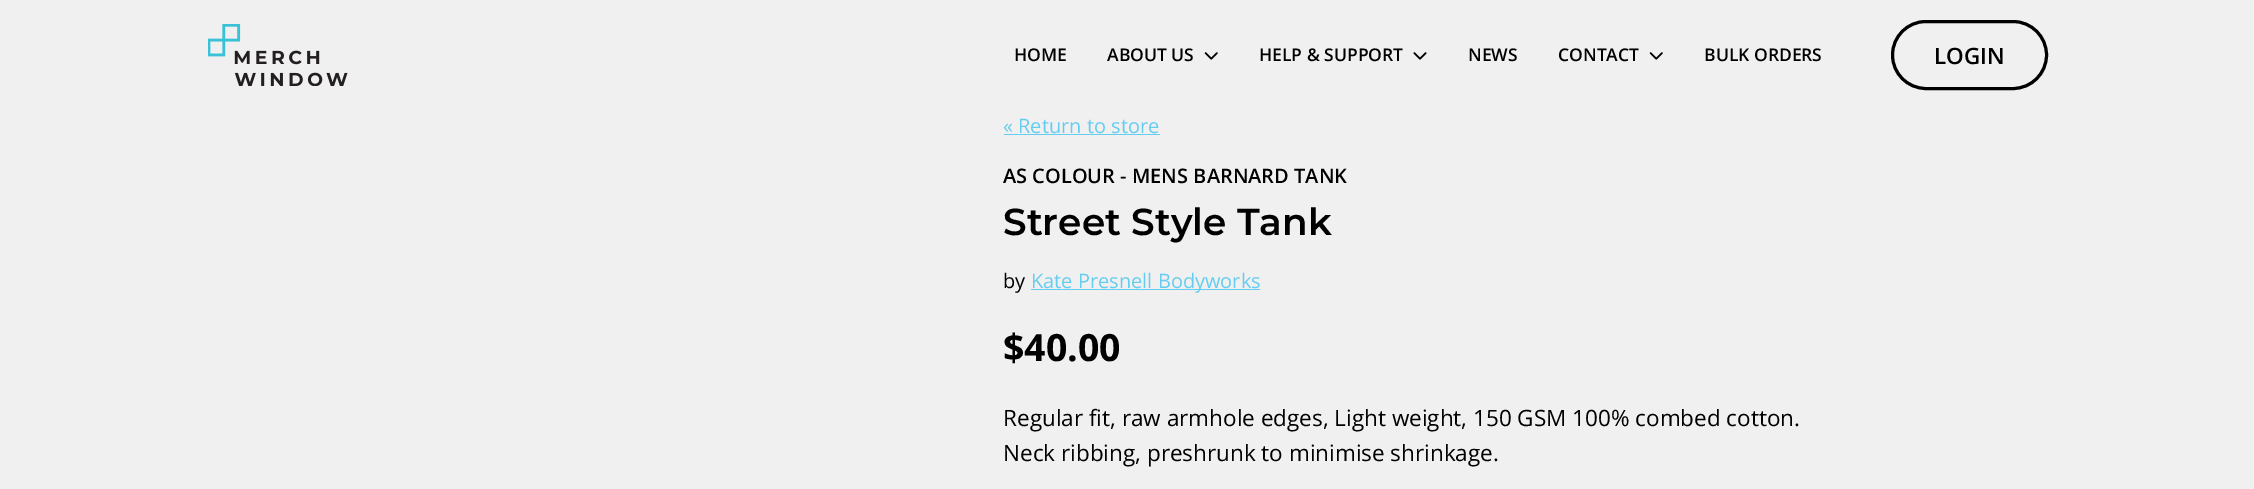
%!PS
<< /PageSize [2254 489] >> setpagedevice
/rgb { 3 { 255 div 3 1 roll } repeat setrgbcolor } def
/font { [ exch dup neg 0 0 3 -1 roll 0 0 ] selectfont } def
/roundrect { 5 dict begin { /r /h /w /y /x } { exch def } forall
  x r add y moveto x w add y 2 copy h add r arct x w add y h add x 1 index r arct
  x y h add x y r arct x y 2 copy exch w add exch r arct closepath end } def
/picture { 5 dict begin { /h /w /y /x /name } { exch def } forall
  gsave x y translate w h scale
  w h 8 [w 0 0 h 0 0] name (r) file false 3 colorimage grestore end } def
0 489 translate 1 -1 scale
4 setmiterlimit
240 240 240 rgb
0 0 2254 489 rectfill
(img/1.rgb) 208 24 140 62 picture
(img/2.rgb) 1204 52 14 8 picture
(img/3.rgb) 1413 52 14 8 picture
(img/2.rgb) 1649 52 14 8 picture
0 0 0 rgb
3 setlinewidth
1892.5 21.5 154 67 33.5 roundrect stroke
101 205 240 rgb
1004 134 156 1 rectfill
1031 289 229 1 rectfill
/OpenSans-SemiBold 17.5 font
0 0 0 rgb
[
  [(HOME) 1014 61]
  [(ABOUT US) 1107 61]
  [(HELP & SUPPORT) 1259 61]
  [(NEWS) 1468 61]
  [(CONTACT) 1558 61]
  [(BULK ORDERS) 1704 61]
] { aload pop moveto show } forall
/OpenSans-SemiBold 22.5 font
1934 64 moveto (LOGIN) show
/OpenSans-Regular 20 font
101 205 240 rgb
1003 133 moveto (« Return to store) show
/OpenSans-SemiBold 20 font
0 0 0 rgb
1003 183 moveto (AS COLOUR - MENS BARNARD TANK) show
/Montserrat-Thin 37.5 font
1003 235 moveto (Street Style Tank) show
/OpenSans-Regular 20 font
1003 288 moveto (by) show
101 205 240 rgb
1031 288 moveto (Kate Presnell Bodyworks) show
/OpenSans-Bold 37.5 font
0 0 0 rgb
1003 361 moveto ($40.00) show
/OpenSans-Regular 22.5 font
1003 426 moveto (Regular fit, raw armhole edges, Light weight, 150 GSM 100% combed cotton.) show
1003 461 moveto (Neck ribbing, preshrunk to minimise shrinkage.) show
showpage
